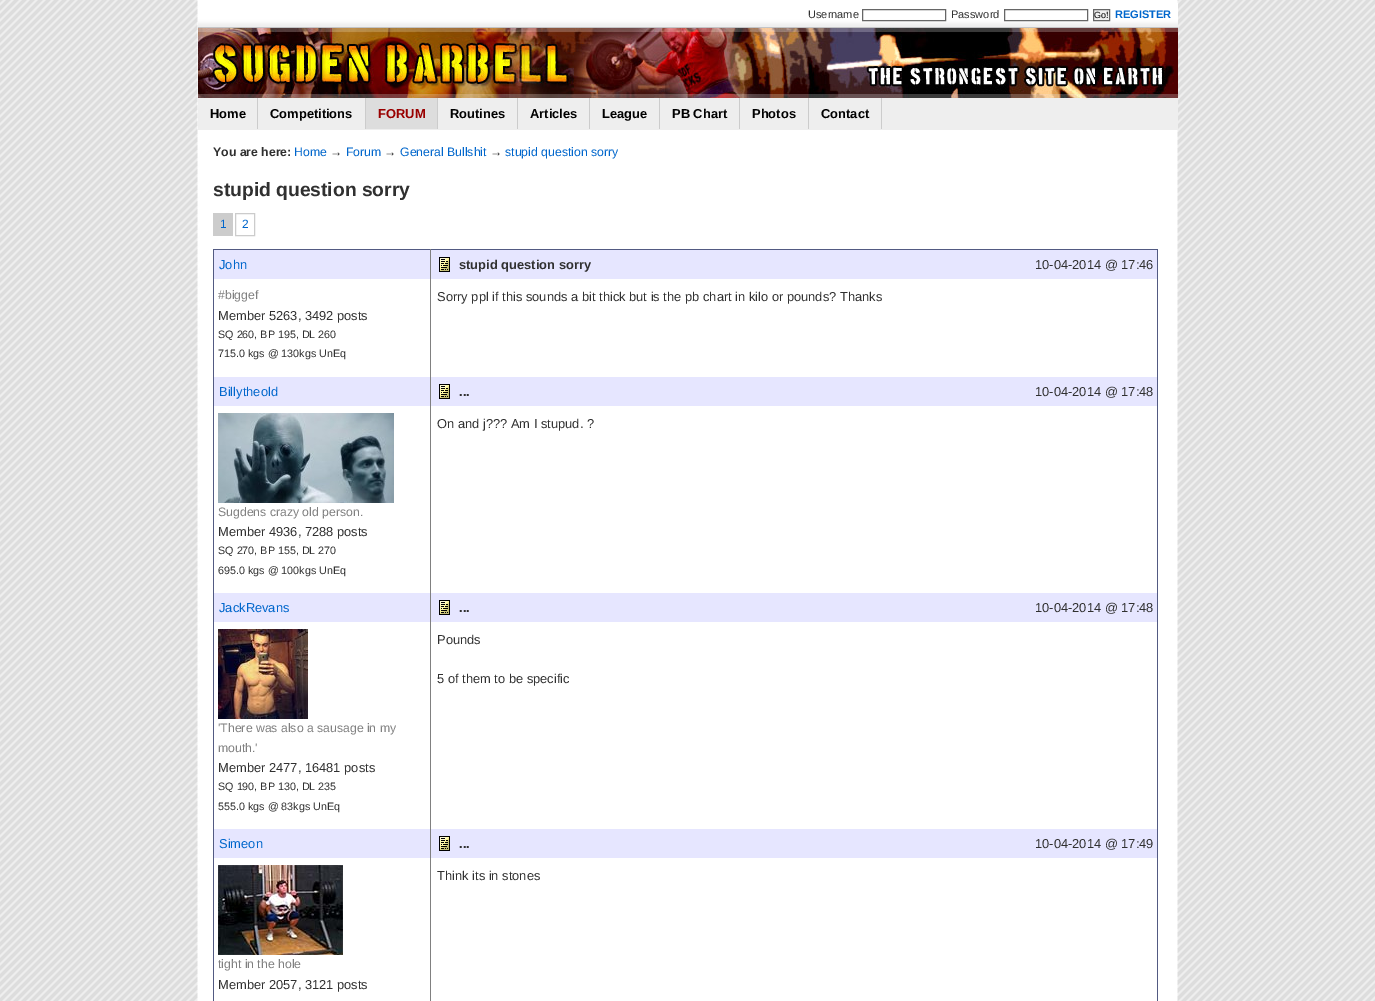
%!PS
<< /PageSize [1375 1001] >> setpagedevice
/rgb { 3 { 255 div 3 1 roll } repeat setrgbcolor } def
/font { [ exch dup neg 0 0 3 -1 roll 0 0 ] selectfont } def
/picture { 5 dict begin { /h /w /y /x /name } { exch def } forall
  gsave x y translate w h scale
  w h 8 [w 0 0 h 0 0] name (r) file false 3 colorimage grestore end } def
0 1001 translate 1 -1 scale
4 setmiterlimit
255 255 255 rgb
0 0 1375 1001 rectfill
(img/1.rgb) 0 0 1375 1001 picture
(img/2.rgb) 198 3 980 25 picture
102 102 102 rgb
862.5 9.5 83 11 rectstroke
1004.5 9.5 83 11 rectstroke
239 239 239 rgb
1093.5 9.5 moveto 1109.5 9.5 lineto 1109.5 20.5 lineto 1093.5 20.5 lineto closepath gsave fill grestore
102 102 102 rgb
stroke
(img/3.rgb) 198 28 980 70 picture
[
  [198 98 980 32 238 238 238]
  [257 98 1 31 204 204 204]
  [365 98 1 31 204 204 204]
  [366 98 71 31 221 221 221]
  [437 98 1 31 204 204 204]
  [517 98 1 31 204 204 204]
  [589 98 1 31 204 204 204]
  [659 98 1 31 204 204 204]
  [739 98 1 31 204 204 204]
  [808 98 1 31 204 204 204]
  [881 98 1 31 204 204 204]
  [213 213 20 23 204 204 204]
] { aload pop rgb rectfill } forall
235.5 213.5 19 22 rectstroke
[
  [213 249 945 1 82 90 130]
  [1157 249 1 752 82 90 130]
  [213 249 1 752 82 90 130]
  [214 250 216 29 230 230 255]
  [431 250 726 29 230 230 255]
] { aload pop rgb rectfill } forall
(img/4.rgb) 439 257 11 15 picture
214 377 216 29 rectfill
431 377 726 29 rectfill
(img/4.rgb) 439 384 11 15 picture
(img/5.rgb) 218 413 176 90 picture
214 593 216 29 rectfill
431 593 726 29 rectfill
(img/4.rgb) 439 600 11 15 picture
(img/6.rgb) 218 629 90 90 picture
214 829 216 29 rectfill
431 829 726 29 rectfill
(img/4.rgb) 439 836 11 15 picture
128 128 128 rgb
430 249 1 752 rectfill
(img/7.rgb) 218 865 125 90 picture
/LiberationSans-Regular 11 font
48 48 48 rgb
808 18 moveto (Username) show
951 18 moveto (Password) show
/LiberationSans-Regular 9 font
0 0 0 rgb
1094 18 moveto (Go!) show
/LiberationSans-Bold 11 font
0 102 204 rgb
1115 18 moveto (REGISTER) show
/LiberationSans-Bold 12.9 font
0 0 0 rgb
210 118 moveto (Home) show
270 118 moveto (Competitions) show
153 0 0 rgb
378 118 moveto (FORUM) show
0 0 0 rgb
[
  [(Routines) 450 118]
  [(Articles) 530 118]
  [(League) 602 118]
  [(PB Chart) 672 118]
  [(Photos) 752 118]
  [(Contact) 821 118]
] { aload pop moveto show } forall
/LiberationSans-Bold 12.25 font
48 48 48 rgb
213 156 moveto (You are here:) show
/LiberationSans-Regular 12.25 font
0 102 204 rgb
294 156 moveto (Home) show
48 48 48 rgb
330 156 moveto (→) show
0 102 204 rgb
346 156 moveto (Forum) show
48 48 48 rgb
384 156 moveto (→) show
0 102 204 rgb
400 156 moveto (General Bullshit) show
48 48 48 rgb
490 156 moveto (→) show
0 102 204 rgb
505 156 moveto (stupid question sorry) show
/LiberationSans-Bold 19.25 font
48 48 48 rgb
213 196 moveto (stupid question sorry) show
/LiberationSans-Regular 12 font
0 102 204 rgb
220 228 moveto (1) show
242 228 moveto (2) show
/LiberationSans-Regular 12.9 font
219 269 moveto (John) show
/LiberationSans-Bold 12.9 font
48 48 48 rgb
459 269 moveto (stupid question sorry) show
/LiberationSans-Regular 12.9 font
1035 269 moveto (10-04-2014 @ 17:46) show
/LiberationSans-Regular 12.25 font
128 128 128 rgb
218 299 moveto (#biggef) show
/LiberationSans-Regular 12.9 font
48 48 48 rgb
218 320 moveto (Member 5263, 3492 posts) show
/LiberationSans-Regular 10.75 font
218 338 moveto (SQ 260, BP 195, DL 260) show
218 357 moveto (715.0 kgs @ 130kgs UnEq) show
/LiberationSans-Regular 12.9 font
437 301 moveto (Sorry ppl if this sounds a bit thick but is the pb chart in kilo or pounds? Thanks) show
0 102 204 rgb
219 396 moveto (Billytheold) show
/LiberationSans-Bold 12.9 font
48 48 48 rgb
459 396 moveto (...) show
/LiberationSans-Regular 12.9 font
1035 396 moveto (10-04-2014 @ 17:48) show
437 428 moveto (On and j??? Am I stupud. ?) show
/LiberationSans-Regular 12.25 font
128 128 128 rgb
218 516 moveto (Sugdens crazy old person.) show
/LiberationSans-Regular 12.9 font
48 48 48 rgb
218 536 moveto (Member 4936, 7288 posts) show
/LiberationSans-Regular 10.75 font
218 554 moveto (SQ 270, BP 155, DL 270) show
218 574 moveto (695.0 kgs @ 100kgs UnEq) show
/LiberationSans-Regular 12.9 font
0 102 204 rgb
219 612 moveto (JackRevans) show
/LiberationSans-Bold 12.9 font
48 48 48 rgb
459 612 moveto (...) show
/LiberationSans-Regular 12.9 font
[
  [(10-04-2014 @ 17:48) 1035 612]
  [(Pounds) 437 644]
  [(5 of them to be specific) 437 683]
] { aload pop moveto show } forall
/LiberationSans-Regular 12.25 font
128 128 128 rgb
218 732 moveto ('There was also a sausage in my) show
218 752 moveto (mouth.') show
/LiberationSans-Regular 12.9 font
48 48 48 rgb
218 772 moveto (Member 2477, 16481 posts) show
/LiberationSans-Regular 10.75 font
218 790 moveto (SQ 190, BP 130, DL 235) show
218 810 moveto (555.0 kgs @ 83kgs UnEq) show
/LiberationSans-Regular 12.9 font
0 102 204 rgb
219 848 moveto (Simeon) show
/LiberationSans-Bold 12.9 font
48 48 48 rgb
459 848 moveto (...) show
/LiberationSans-Regular 12.9 font
1035 848 moveto (10-04-2014 @ 17:49) show
437 880 moveto (Think its in stones) show
/LiberationSans-Regular 12.25 font
128 128 128 rgb
218 968 moveto (tight in the hole) show
/LiberationSans-Regular 12.9 font
48 48 48 rgb
218 989 moveto (Member 2057, 3121 posts) show
showpage
